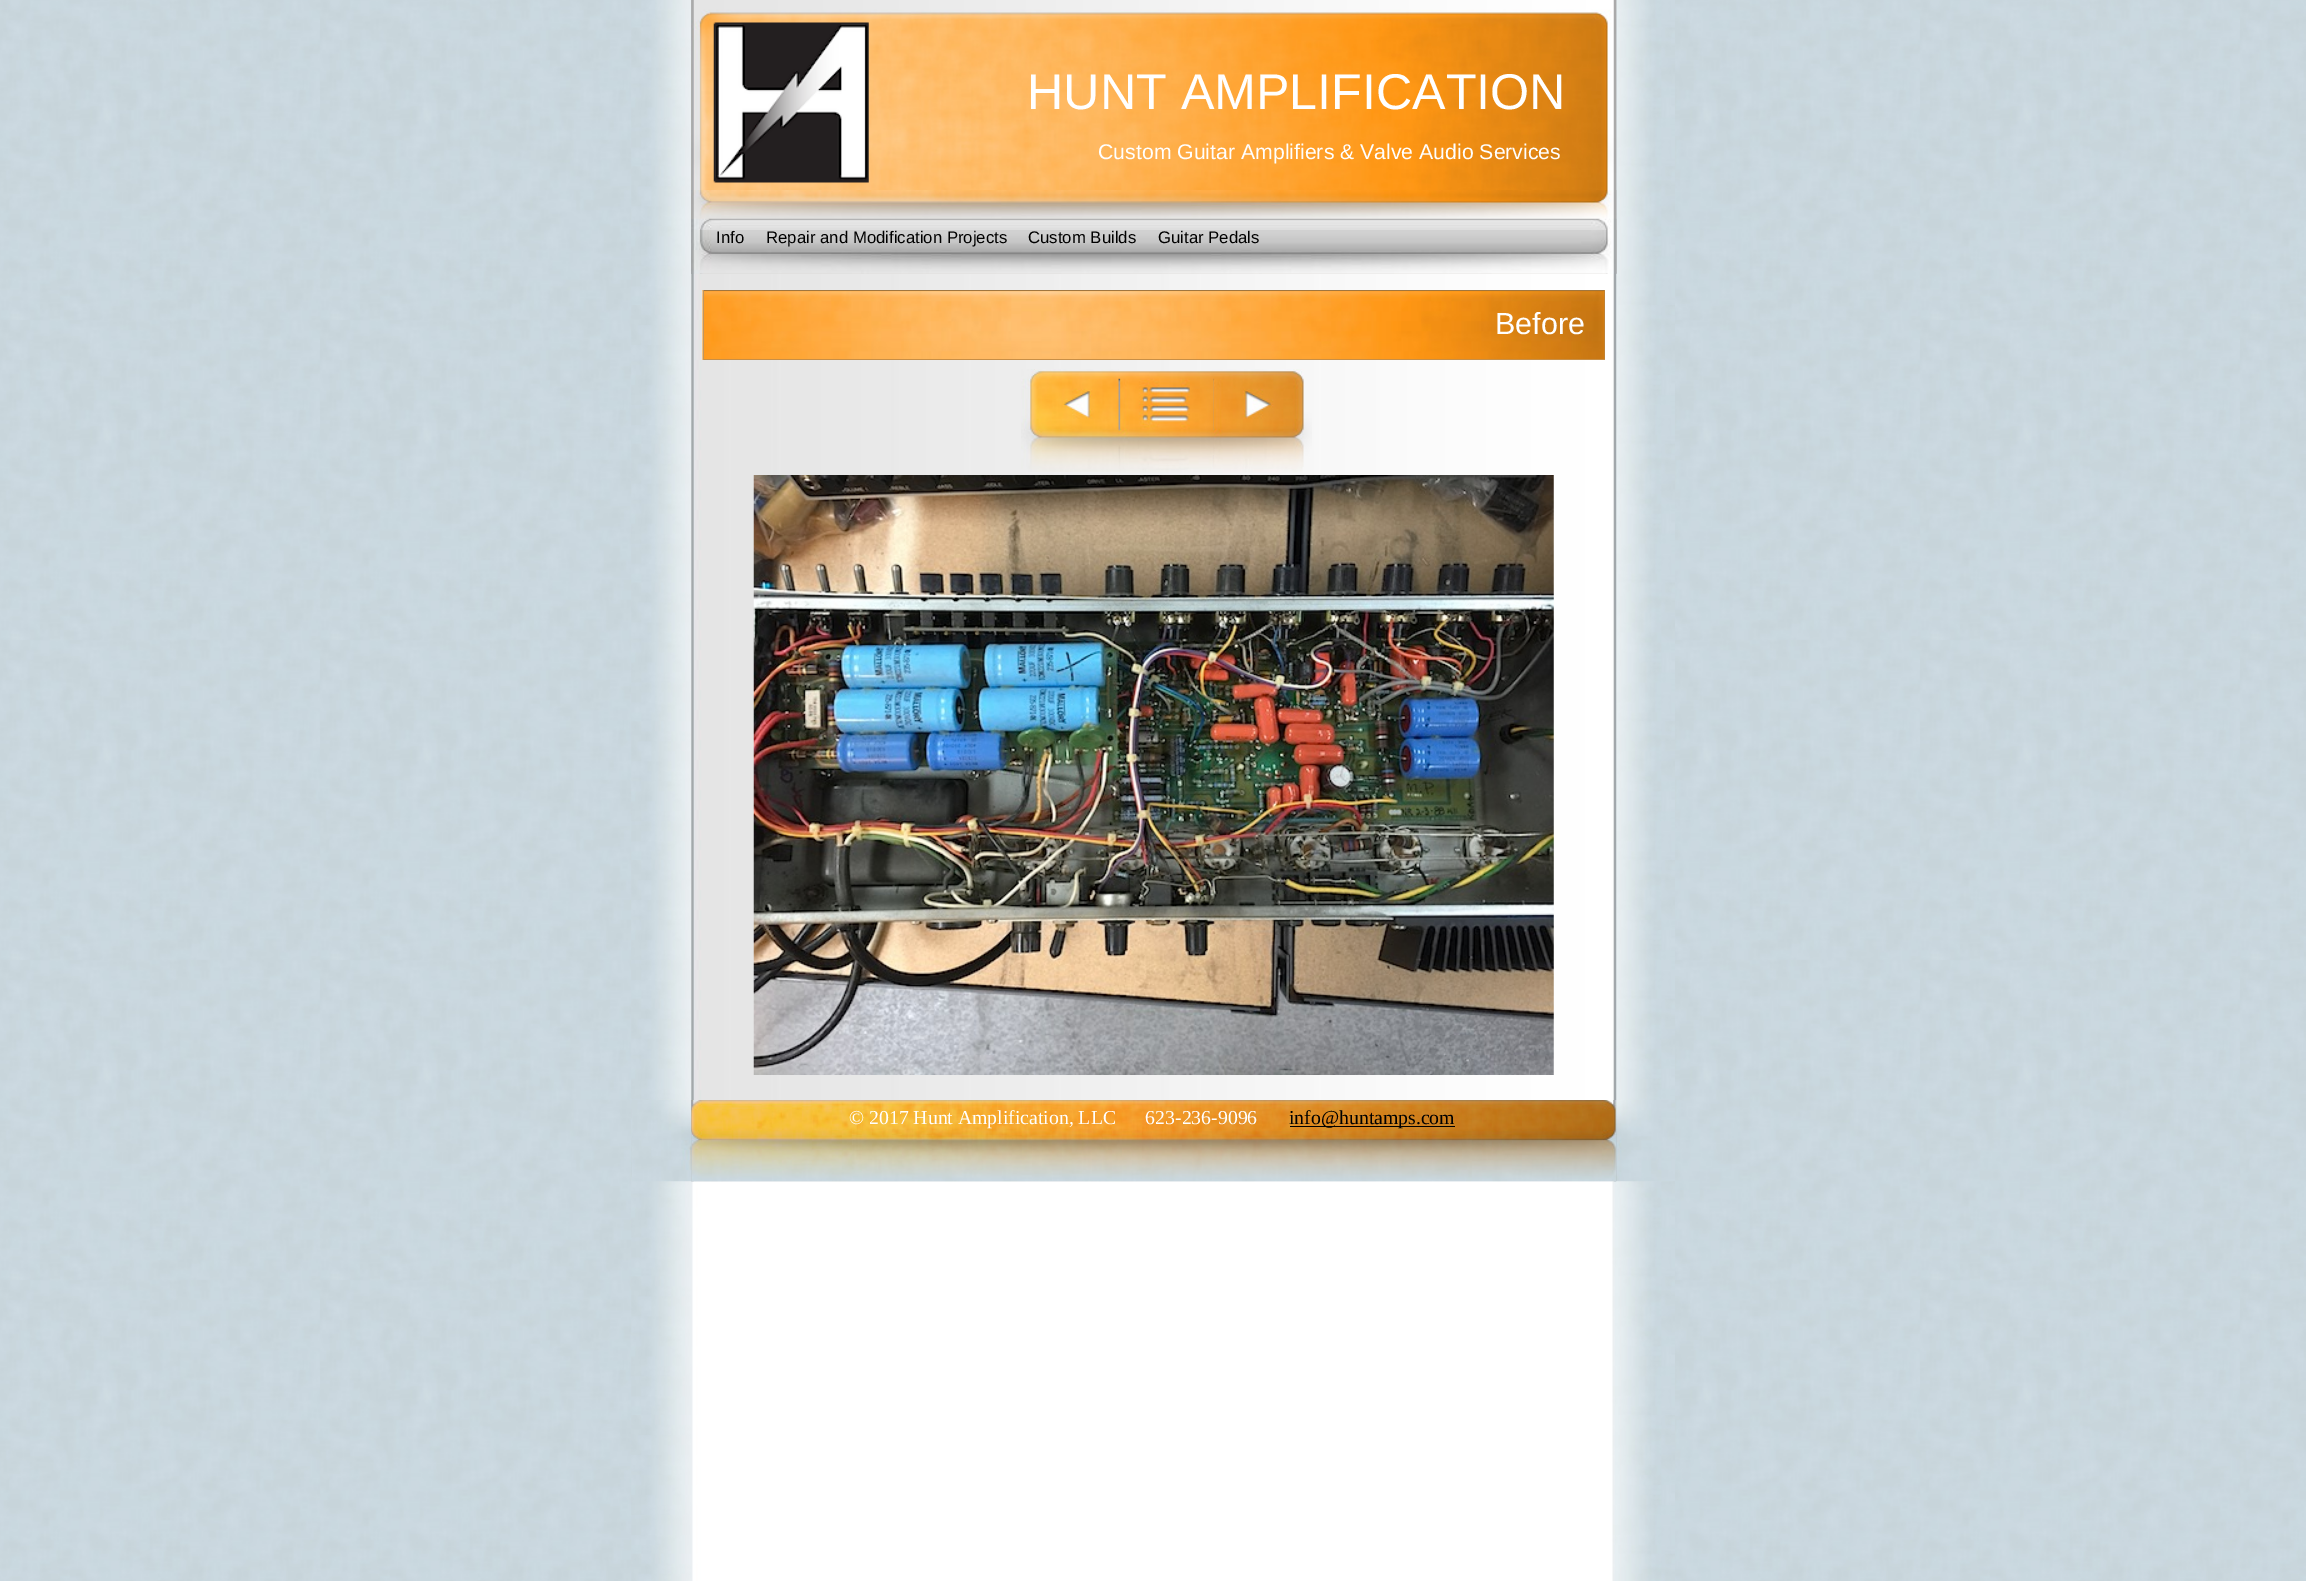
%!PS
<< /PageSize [2306 1581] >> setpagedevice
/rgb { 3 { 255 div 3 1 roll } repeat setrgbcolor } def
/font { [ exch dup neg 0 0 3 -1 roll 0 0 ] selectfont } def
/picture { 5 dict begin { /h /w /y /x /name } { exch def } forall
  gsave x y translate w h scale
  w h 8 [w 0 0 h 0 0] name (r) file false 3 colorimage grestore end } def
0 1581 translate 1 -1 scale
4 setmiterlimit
255 255 255 rgb
0 0 2306 1581 rectfill
(img/1.rgb) 0 0 2306 1581 picture
(img/2.rgb) 631 0 1044 1581 picture
(img/3.rgb) 632 1100 1043 82 picture
(img/4.rgb) 691 0 926 1182 picture
(img/5.rgb) 691 0 926 274 picture
(img/6.rgb) 713 22 156 161 picture
(img/7.rgb) 691 190 926 84 picture
(img/8.rgb) 691 218 926 56 picture
(img/9.rgb) 691 230 926 44 picture
(img/10.rgb) 702 290 902 70 picture
[
  [703 290 902 1 161 118 62]
  [1604 290 1 70 191 129 52]
  [703 359 902 1 199 143 72]
  [703 290 1 70 191 150 97]
] { aload pop rgb rectfill } forall
(img/11.rgb) 1021 369 98 103 picture
(img/12.rgb) 1029 371 90 101 picture
(img/15.rgb) 1212 369 99 104 picture
(img/16.rgb) 1212 369 100 98 picture
(img/13.rgb) 1118 371 95 102 picture
(img/14.rgb) 1118 371 96 84 picture
(img/17.rgb) 753 475 801 600 picture
(img/18.rgb) 691 1100 926 82 picture
0 0 0 rgb
1290 1126 165 1 rectfill
/LiberationSans-Regular 50.25 font
255 255 255 rgb
1027 109 moveto (HUNT AMPLIFICATION) show
/LiberationSans-Regular 21.25 font
1098 159 moveto (Custom Guitar Amplifiers & Valve Audio Services) show
/LiberationSans-Regular 16.75 font
0 0 0 rgb
[
  [(Info) 716 243]
  [(Repair and Modification Projects) 766 243]
  [(Custom Builds) 1028 243]
  [(Guitar Pedals) 1158 243]
] { aload pop moveto show } forall
/LiberationSans-Regular 30.5 font
255 255 255 rgb
1495 334 moveto (Before) show
/LiberationSerif-Regular 19.75 font
849 1124 moveto (© 2017 Hunt Amplification, LLC      623-236-9096) show
0 0 0 rgb
1289 1124 moveto (info@huntamps.com) show
showpage
